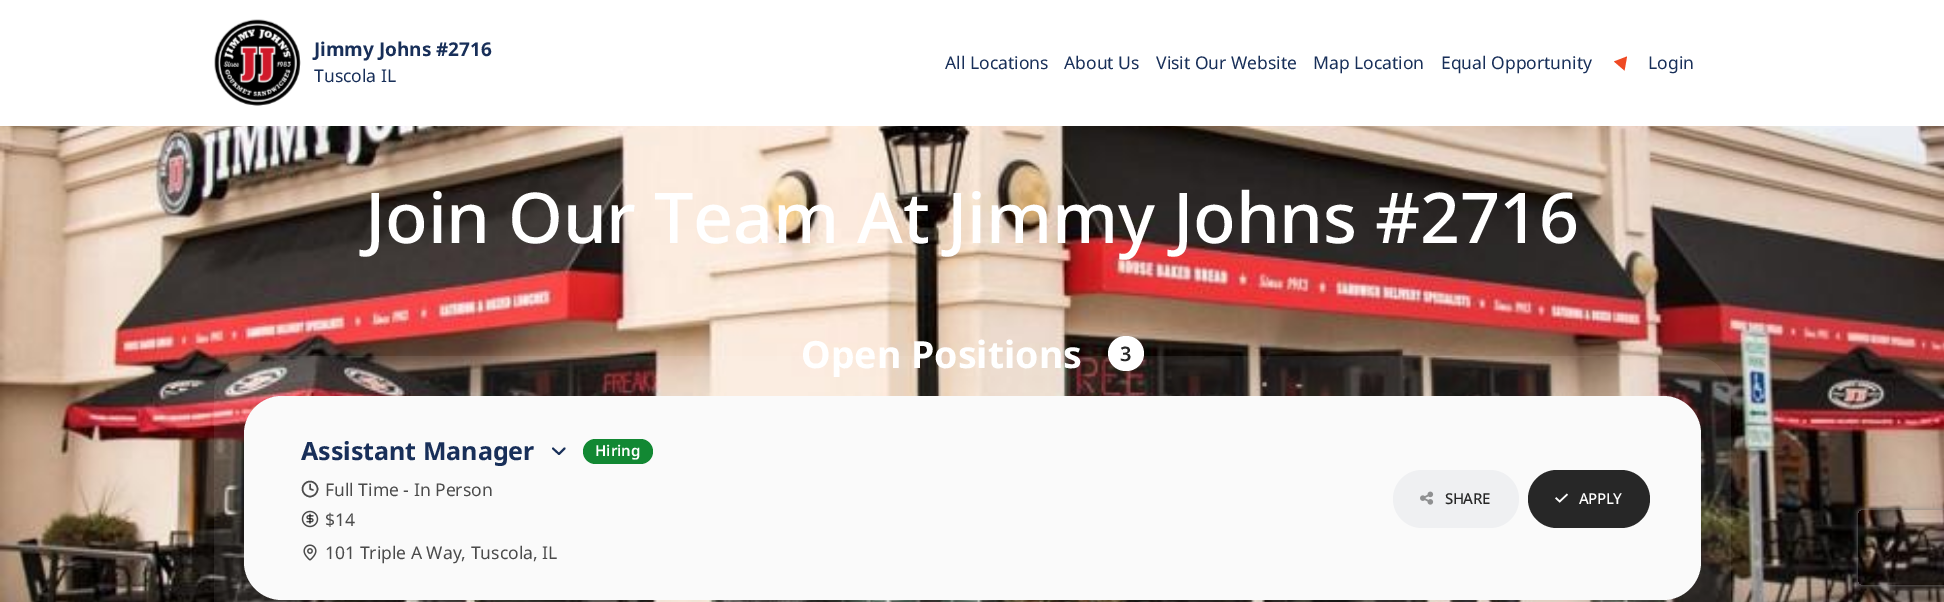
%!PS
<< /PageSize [1944 602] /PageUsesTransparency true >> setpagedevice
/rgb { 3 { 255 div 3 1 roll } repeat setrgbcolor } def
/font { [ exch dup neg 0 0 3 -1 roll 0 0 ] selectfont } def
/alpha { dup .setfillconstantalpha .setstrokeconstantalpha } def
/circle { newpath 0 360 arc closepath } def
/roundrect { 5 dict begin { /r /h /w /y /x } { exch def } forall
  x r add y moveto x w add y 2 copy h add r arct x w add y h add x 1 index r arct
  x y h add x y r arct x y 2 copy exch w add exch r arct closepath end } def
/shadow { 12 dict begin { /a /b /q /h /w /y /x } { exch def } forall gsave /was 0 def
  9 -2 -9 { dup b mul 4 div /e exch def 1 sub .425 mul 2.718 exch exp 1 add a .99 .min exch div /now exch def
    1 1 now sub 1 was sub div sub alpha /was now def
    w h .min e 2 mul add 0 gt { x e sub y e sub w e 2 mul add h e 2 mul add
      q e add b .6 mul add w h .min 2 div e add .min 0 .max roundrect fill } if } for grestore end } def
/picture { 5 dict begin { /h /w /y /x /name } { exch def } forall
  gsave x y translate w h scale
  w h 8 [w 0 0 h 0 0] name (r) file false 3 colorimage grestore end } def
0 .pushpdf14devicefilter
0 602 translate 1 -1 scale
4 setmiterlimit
255 255 255 rgb
0 0 1944 602 rectfill
(img/1.rgb) 214 19 87 87 picture
239 73 35 rgb
1627 56.5 moveto 1624.5 70.5 lineto 1614 61.5 lineto closepath fill
(img/2.rgb) 0 126 1944 476 picture
0.08 alpha
255 255 255 rgb
214 356 1517 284 38 roundrect fill
1 alpha
1108 336 36 35 17.5 roundrect fill
250 250 250 rgb
244 396 1457 204 38 roundrect fill
24 47 89 rgb
1.9 setlinewidth
1 setlinecap
1 setlinejoin
553 448.5 moveto 559 454 lineto 564.5 448.5 lineto stroke
18 136 51 rgb
583 439 70 25 12.5 roundrect fill
75 75 75 rgb
1.5 setlinewidth
0 setlinecap
0 setlinejoin
310 489 7.5 circle stroke
1 setlinecap
1 setlinejoin
310 484.5 moveto 310 489 lineto 313 490 lineto stroke
(img/3.rgb) 301 510 18 18 picture
(img/4.rgb) 303 544 14 17 picture
239 240 242 rgb
1393 470 126 58 29 roundrect fill
(img/5.rgb) 1420 491 14 14 picture
39 39 39 rgb
1528 470 122 58 29 roundrect fill
(img/6.rgb) 1555 493 13 10 picture
gsave
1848 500 moveto 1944 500 lineto 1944 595 lineto 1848 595 lineto closepath 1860.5 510 moveto 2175.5 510 lineto 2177 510 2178 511 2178 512.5 curveto 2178 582.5 lineto 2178 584 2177 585 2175.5 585 curveto 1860.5 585 lineto 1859 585 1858 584 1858 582.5 curveto 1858 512.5 lineto 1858 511 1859 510 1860.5 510 curveto closepath eoclip newpath
128 128 128 rgb
1858 510 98 75 2.5 3 1 shadow
grestore
/NotoSans-Bold 19 font
24 47 89 rgb
314 56 moveto (Jimmy Johns #2716) show
/NotoSans-Regular 17.5 font
[
  [(Tuscola IL) 314 82]
  [(All Locations) 945 69]
  [(About Us) 1064 69]
  [(Visit Our Website) 1156 69]
  [(Map Location) 1313 69]
  [(Equal Opportunity) 1441 69]
  [(Login) 1648 69]
] { aload pop moveto show } forall
/NotoSans-Medium 70 font
255 255 255 rgb
365 243 moveto -0.2 0 (Join Our Team At Jimmy Johns #2716) ashow
/NotoSans-Bold 37.5 font
801 368 moveto (Open Positions) show
/NotoSans-SemiBold 20 font
39 39 39 rgb
1120 361 moveto (3) show
/NotoSans-Bold 25 font
24 47 89 rgb
301 460 moveto (Assistant Manager) show
/NotoSans-SemiBold 15 font
255 255 255 rgb
595 456 moveto (Hiring) show
/NotoSans-Regular 17.5 font
75 75 75 rgb
[
  [(Full Time - In Person) 325 496]
  [($14) 325 526]
  [(101 Triple A Way, Tuscola, IL) 325 559]
] { aload pop moveto show } forall
/NotoSans-Medium 15 font
39 39 39 rgb
1445 504 moveto -0.5 0 (SHARE) ashow
255 255 255 rgb
1579 504 moveto -0.5 0 (APPLY) ashow
.poppdf14devicefilter showpage
